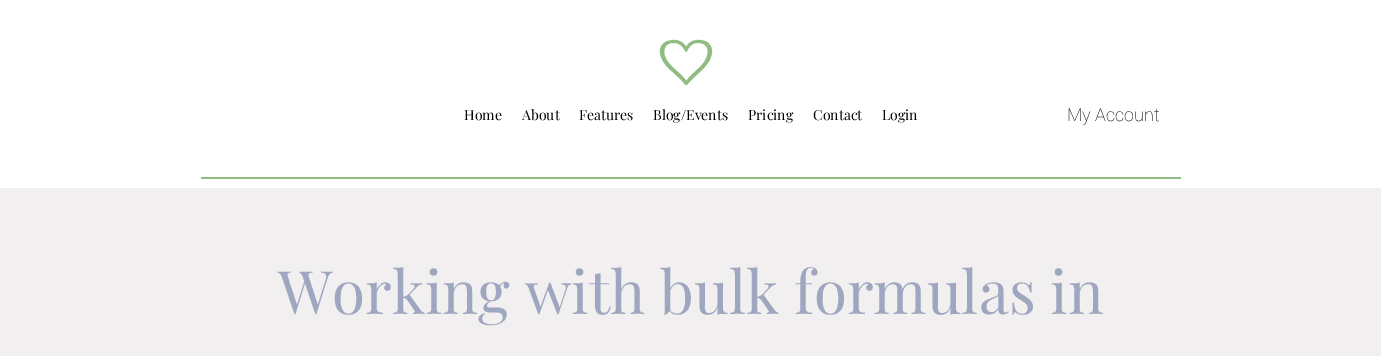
%!PS
<< /PageSize [1381 356] >> setpagedevice
/rgb { 3 { 255 div 3 1 roll } repeat setrgbcolor } def
/font { [ exch dup neg 0 0 3 -1 roll 0 0 ] selectfont } def
/picture { 5 dict begin { /h /w /y /x /name } { exch def } forall
  gsave x y translate w h scale
  w h 8 [w 0 0 h 0 0] name (r) file false 3 colorimage grestore end } def
0 356 translate 1 -1 scale
4 setmiterlimit
255 255 255 rgb
0 0 1381 356 rectfill
(img/1.rgb) 659 39 54 47 picture
144 188 129 rgb
201 177 980 2 rectfill
241 239 239 rgb
0 188 1381 168 rectfill
/PlayfairDisplay-Regular 14 font
0 0 0 rgb
[
  [(Home) 464 120]
  [(About) 522 120]
  [(Features) 579 120]
  [(Blog/Events) 653 120]
  [(Pricing) 748 120]
  [(Contact) 813 120]
  [(Login) 882 120]
] { aload pop moveto show } forall
/Roboto-Thin 18 font
1067 121 moveto (My Account) show
/PlayfairDisplay-Regular 60 font
159 166 192 rgb
278 314 moveto (Working with bulk formulas in) show
showpage
